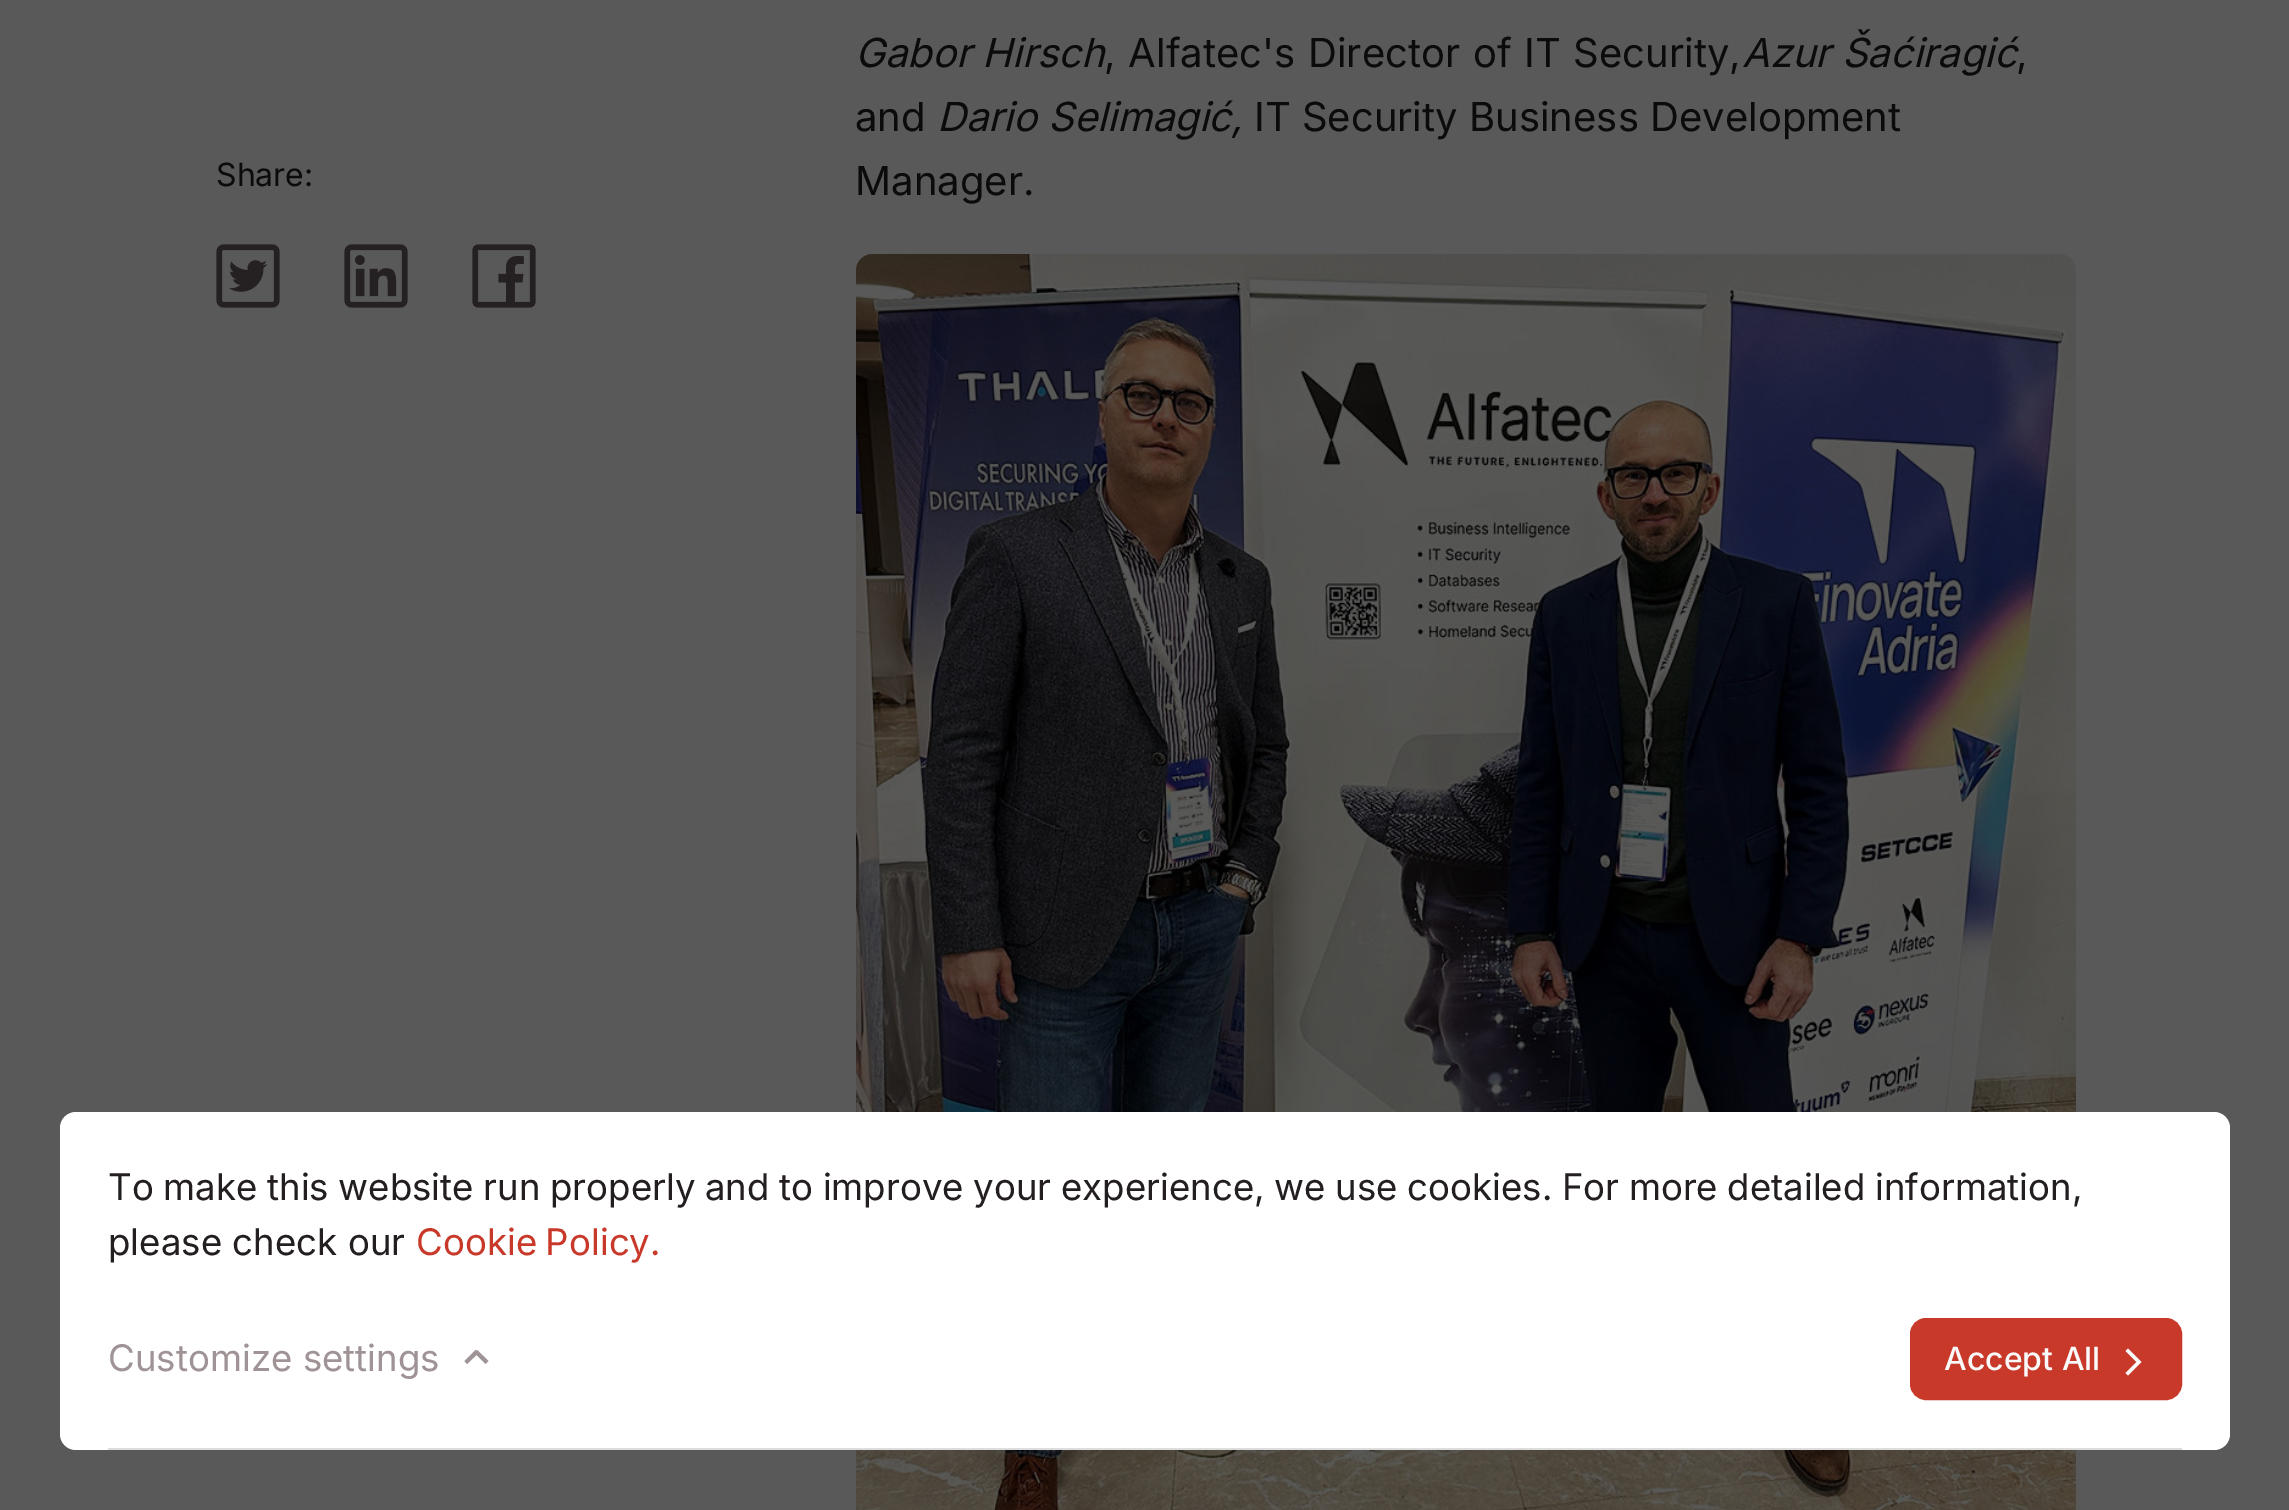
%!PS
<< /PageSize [2289 1510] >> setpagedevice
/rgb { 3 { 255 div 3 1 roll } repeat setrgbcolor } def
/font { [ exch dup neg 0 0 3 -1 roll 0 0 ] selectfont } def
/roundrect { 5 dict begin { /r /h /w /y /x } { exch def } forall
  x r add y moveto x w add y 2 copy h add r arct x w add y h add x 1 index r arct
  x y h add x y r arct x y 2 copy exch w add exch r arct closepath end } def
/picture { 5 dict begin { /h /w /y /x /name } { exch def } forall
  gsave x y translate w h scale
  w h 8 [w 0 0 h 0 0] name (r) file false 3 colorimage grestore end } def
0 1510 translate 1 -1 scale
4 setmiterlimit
89 89 89 rgb
0 0 2289 1510 rectfill
(img/1.rgb) 216 244 64 64 picture
(img/2.rgb) 344 244 64 64 picture
(img/3.rgb) 472 244 64 64 picture
(img/4.rgb) 856 254 1220 1256 picture
255 255 255 rgb
60 1112 2170 338 16 roundrect fill
221 221 221 rgb
108 1448 2074 2 rectfill
159 147 150 rgb
477 1350 moveto 488.5 1361 lineto 485.5 1364 lineto 474.5 1353 lineto closepath fill
464.5 1361 moveto 475.5 1350 lineto 478.5 1353 lineto 467 1364 lineto closepath fill
201 57 42 rgb
1911 1319 270 80 15 roundrect gsave fill grestore
2 setlinewidth
stroke
250 250 250 rgb
2125.5 1373 moveto 2128 1375.5 lineto 2141.5 1362 lineto 2128 1348.5 lineto 2125.5 1351 lineto 2136.5 1362 lineto closepath fill
/Inter-Regular 32 font
12 11 11 rgb
216 186 moveto (Share:) show
/Inter-Italic 40 font
855 67 moveto (Gabor Hirsch) show
/Inter-Regular 40 font
1104 67 moveto 1.5 0 32 (, Alfatec's Director of IT Security,) widthshow
/Inter-Italic 40 font
1742 67 moveto (Azur Šaćiragić) show
/Inter-Regular 40 font
2016 67 moveto (,) show
855 131 moveto (and) show
/Inter-Italic 40 font
937 131 moveto (Dario Selimagić,) show
/Inter-Regular 40 font
1254 131 moveto (IT Security Business Development) show
855 195 moveto (Manager.) show
/Inter-Regular 36.65 font
35 31 32 rgb
108 1200 moveto -0.75 0 32 (To make this website run properly and to improve your experience, we use cookies. For more detailed information,) widthshow
108 1255 moveto (please check our) show
201 57 42 rgb
416 1255 moveto -2 0 32 (Cookie Policy.) widthshow
159 147 150 rgb
108 1371 moveto (Customize settings) show
/Inter-Medium 32 font
250 250 250 rgb
1944 1370 moveto (Accept All) show
showpage
